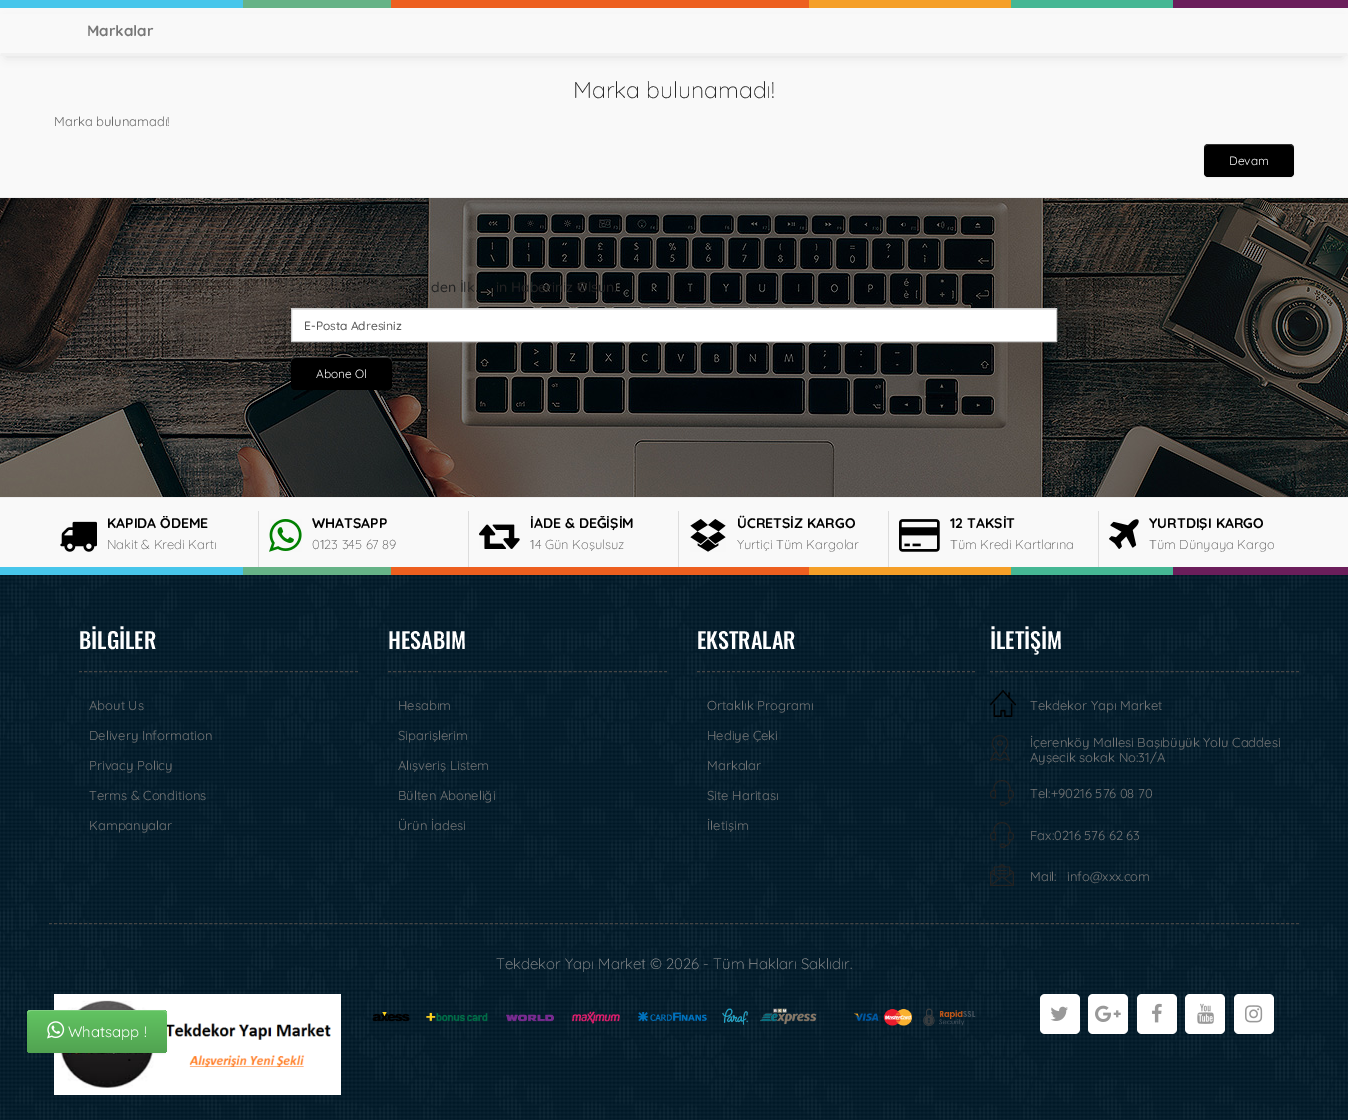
%!PS
<< /PageSize [1348 1120] /PageUsesTransparency true >> setpagedevice
/rgb { 3 { 255 div 3 1 roll } repeat setrgbcolor } def
/font { [ exch dup neg 0 0 3 -1 roll 0 0 ] selectfont } def
/alpha { dup .setfillconstantalpha .setstrokeconstantalpha } def
/roundrect { 5 dict begin { /r /h /w /y /x } { exch def } forall
  x r add y moveto x w add y 2 copy h add r arct x w add y h add x 1 index r arct
  x y h add x y r arct x y 2 copy exch w add exch r arct closepath end } def
/shadow { 12 dict begin { /a /b /q /h /w /y /x } { exch def } forall gsave /was 0 def
  9 -2 -9 { dup b mul 4 div /e exch def 1 sub .425 mul 2.718 exch exp 1 add a .99 .min exch div /now exch def
    1 1 now sub 1 was sub div sub alpha /was now def
    w h .min e 2 mul add 0 gt { x e sub y e sub w e 2 mul add h e 2 mul add
      q e add b .6 mul add w h .min 2 div e add .min 0 .max roundrect fill } if } for grestore end } def
/picture { 5 dict begin { /h /w /y /x /name } { exch def } forall
  gsave x y translate w h scale
  w h 8 [w 0 0 h 0 0] name (r) file false 3 colorimage grestore end } def
0 .pushpdf14devicefilter
0 1120 translate 1 -1 scale
4 setmiterlimit
249 249 249 rgb
0 0 1348 1120 rectfill
[
  [0 0 243 8 71 198 235]
  [243 0 148 8 102 179 135]
  [391 0 418 8 237 95 31]
  [809 0 202 8 245 159 40]
  [1011 0 162 8 69 183 148]
  [1173 0 175 8 107 30 91]
] { aload pop rgb rectfill } forall
221 221 221 rgb
6 21 1336 36 0 5 1 shadow
249 249 249 rgb
0 14 1348 42 rectfill
241 241 241 rgb
1348 56 moveto 0 56 lineto 1 53 lineto 1347 53 lineto closepath fill
0 0 0 rgb
1204 145 90 33 4 1 0.05 shadow
1204 144 90 33 4 roundrect fill
0.2 alpha
255 255 255 rgb
1208 145 moveto 1290 145 lineto 1292 145 1294 147 1294 149 curveto 1294 141 1281 144 1276 144 curveto 1222 144 lineto 1217 144 1204 141 1204 149 curveto 1204 147 1206 145 1208 145 curveto closepath fill
1 alpha
(img/2.rgb) 0 575 1348 545 picture
(img/15.rgb) 54 994 287 101 picture
0 0 0 rgb
27 1011 140 43 4 1 0.05 shadow
gsave 27 1010 140 43 4 roundrect clip newpath
<< /ShadingType 2 /ColorSpace /DeviceRGB /Coords [97 1010 97 1053] /Extend [true true] /Function << /FunctionType 2 /Domain [0 1] /C0 [0.384 0.769 0.384] /C1 [0.318 0.639 0.318] /N 1 >> >> shfill grestore
0.2 alpha
255 255 255 rgb
31 1011 moveto 163 1011 lineto 165 1011 167 1013 167 1015 curveto 167 1014 lineto 167 1012 165 1010 163 1010 curveto 31 1010 lineto 29 1010 27 1012 27 1014 curveto 27 1015 lineto 27 1013 29 1011 31 1011 curveto closepath fill
1 alpha
(img/1.rgb) 47 1021 18 18 picture
(img/3.rgb) 0 198 1348 299 picture
[
  [0 197 1348 1 238 238 238]
  [292 310 764 31 255 255 255]
  [292 309 764 1 236 236 236]
] { aload pop rgb rectfill } forall
204 204 204 rgb
291.5 308.5 765 33 rectstroke
0 0 0 rgb
291 357 101 33 4 roundrect fill
0.2 alpha
255 255 255 rgb
295 358 moveto 388 358 lineto 390 358 392 360 392 362 curveto 392 353 377 357 372 357 curveto 310 357 lineto 306 357 291 353 291 362 curveto 291 360 293 358 295 358 curveto closepath fill
1 alpha
238 238 238 rgb
0 497 1348 1 rectfill
221 221 221 rgb
258 511 1 56 rectfill
(img/4.rgb) 60 521 37 31 picture
468 511 1 56 rectfill
(img/5.rgb) 269 519 33 33 picture
678 511 1 56 rectfill
(img/6.rgb) 479 524 41 25 picture
888 511 1 56 rectfill
(img/7.rgb) 690 519 36 33 picture
1098 511 1 56 rectfill
(img/8.rgb) 899 519 41 33 picture
(img/9.rgb) 1109 519 30 30 picture
[
  [0 567 243 8 71 198 235]
  [243 567 148 8 102 179 135]
  [391 567 418 8 237 95 31]
  [809 567 202 8 245 159 40]
  [1011 567 162 8 69 183 148]
  [1173 567 175 8 107 30 91]
] { aload pop rgb rectfill } forall
68 68 68 rgb
[3 2.01] 0 setdash
49 923.5 moveto 1299 923.5 lineto stroke
[3 2.02] 0 setdash
79 671.5 moveto 358 671.5 lineto stroke
388 671.5 moveto 667 671.5 lineto stroke
[3 2] 0 setdash
697 671.5 moveto 975 671.5 lineto stroke
[3 2.02] 0 setdash
990 671.5 moveto 1299 671.5 lineto stroke
(img/10.rgb) 990 690 26 27 picture
(img/11.rgb) 990 735 20 26 picture
(img/12.rgb) 990 780 24 26 picture
(img/13.rgb) 990 822 24 26 picture
(img/14.rgb) 990 864 24 22 picture
(img/16.rgb) 372 1008 604 18 picture
255 255 255 rgb
1040 994 40 40 5 roundrect fill
(img/17.rgb) 1050 1006 18 15 picture
1088 994 40 40 5 roundrect fill
(img/18.rgb) 1095 1005 26 17 picture
1137 994 40 40 5 roundrect fill
(img/19.rgb) 1152 1003 10 20 picture
1185 994 40 40 5 roundrect fill
(img/20.rgb) 1197 1003 17 21 picture
1234 994 40 40 5 roundrect fill
(img/21.rgb) 1245 1005 18 18 picture
/Quicksand-Bold 15 font
119 119 119 rgb
87 36 moveto (Markalar) show
/Quicksand-Light 23 font
42 42 42 rgb
573 98 moveto (Marka bulunamadı!) show
/Quicksand-Regular 13 font
102 102 102 rgb
54 126 moveto (Marka bulunamadı!) show
/Quicksand-Regular 12 font
255 255 255 rgb
1229 165 moveto (Devam) show
/Quicksand-Regular 15 font
68 1037 moveto (Whatsapp !) show
/Quicksand-Medium 14 font
34 34 34 rgb
431 292 moveto (den İlk) show
496 292 moveto (in Haberiniz Olsun.) show
/Quicksand-Medium 12 font
85 85 85 rgb
304 330 moveto (E-Posta Adresiniz) show
/Quicksand-Regular 12 font
255 255 255 rgb
316 378 moveto (Abone Ol) show
gsave
107 516 110 16 rectclip
/Quicksand-Bold 14 font
0 0 0 rgb
107 528 moveto (KAPIDA ÖDEME) show
grestore
/Quicksand-Light 13 font
85 85 85 rgb
107 549 moveto (Nakit & Kredi Kartı) show
/Quicksand-Bold 14 font
0 0 0 rgb
312 528 moveto (WHATSAPP) show
/Quicksand-Light 13 font
85 85 85 rgb
312 549 moveto (0123 345 67 89) show
gsave
530 516 104 16 rectclip
/Quicksand-Bold 14 font
0 0 0 rgb
530 528 moveto (İADE & DEĞİŞİM) show
grestore
530 549 moveto (14 Gün Koşulsuz) show
/Quicksand-Bold 14 font
0 0 0 rgb
737 528 moveto (ÜCRETSİZ KARGO) show
/Quicksand-Light 13 font
85 85 85 rgb
737 549 moveto (Yurtiçi Tüm Kargolar) show
/Quicksand-Bold 14 font
0 0 0 rgb
950 528 moveto (12 TAKSİT) show
/Quicksand-Light 13 font
85 85 85 rgb
950 549 moveto (Tüm Kredi Kartlarına) show
/Quicksand-Bold 14 font
0 0 0 rgb
1149 528 moveto (YURTDIŞI KARGO) show
/Quicksand-Light 13 font
85 85 85 rgb
1149 549 moveto (Tüm Dünyaya Kargo) show
/Oswald-Medium 22 font
255 255 255 rgb
79 649 moveto (BİLGİLER) show
/Quicksand-Regular 13 font
119 119 119 rgb
[
  [(About Us) 89 710]
  [(Delivery Information) 89 740]
  [(Privacy Policy) 89 770]
  [(Terms & Conditions) 89 800]
  [(Kampanyalar) 89 830]
] { aload pop moveto show } forall
/Oswald-Medium 22 font
255 255 255 rgb
388 649 moveto (HESABIM) show
/Quicksand-Regular 13 font
119 119 119 rgb
[
  [(Hesabım) 398 710]
  [(Siparişlerim) 398 740]
  [(Alışveriş Listem) 398 770]
  [(Bülten Aboneliği) 398 800]
  [(Ürün İadesi) 398 830]
] { aload pop moveto show } forall
/Oswald-Medium 22 font
255 255 255 rgb
697 649 moveto (EKSTRALAR) show
/Quicksand-Regular 13 font
119 119 119 rgb
[
  [(Ortaklık Programı) 707 710]
  [(Hediye Çeki) 707 740]
  [(Markalar) 707 770]
  [(Site Haritası) 707 800]
  [(İletişim) 707 830]
] { aload pop moveto show } forall
/Oswald-Medium 22 font
255 255 255 rgb
990 649 moveto (İLETİŞİM) show
/Quicksand-Regular 13 font
119 119 119 rgb
[
  [(Tekdekor Yapı Market) 1030 710]
  [(İçerenköy Mallesi Başıbüyük Yolu Caddesi) 1030 747]
  [(Ayşecik sokak No:31/A) 1030 762]
  [(Tel:+90216 576 08 70) 1030 798]
  [(Fax:0216 576 62 63) 1030 840]
  [(Mail:) 1030 881]
  [(info@xxx.com) 1067 881]
] { aload pop moveto show } forall
/Quicksand-Light 15 font
153 153 153 rgb
496 969 moveto (Tekdekor Yapı Market © 2026 - Tüm Hakları Saklıdır.) show
.poppdf14devicefilter showpage
